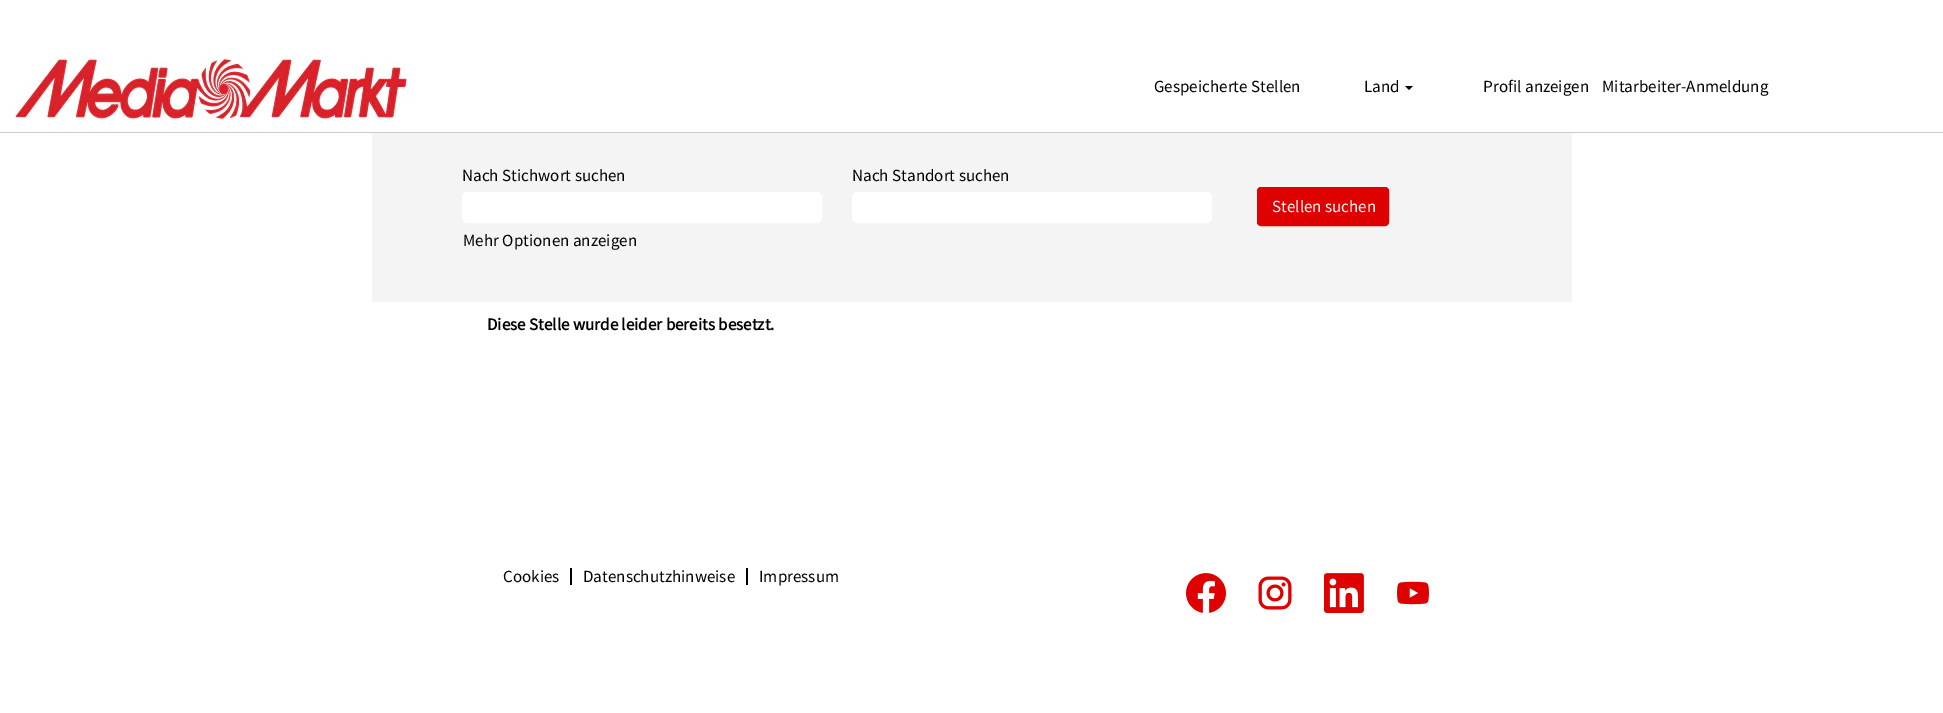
%!PS
<< /PageSize [1943 713] >> setpagedevice
/rgb { 3 { 255 div 3 1 roll } repeat setrgbcolor } def
/font { [ exch dup neg 0 0 3 -1 roll 0 0 ] selectfont } def
/roundrect { 5 dict begin { /r /h /w /y /x } { exch def } forall
  x r add y moveto x w add y 2 copy h add r arct x w add y h add x 1 index r arct
  x y h add x y r arct x y 2 copy exch w add exch r arct closepath end } def
/picture { 5 dict begin { /h /w /y /x /name } { exch def } forall
  gsave x y translate w h scale
  w h 8 [w 0 0 h 0 0] name (r) file false 3 colorimage grestore end } def
0 713 translate 1 -1 scale
4 setmiterlimit
255 255 255 rgb
0 0 1943 713 rectfill
(img/1.rgb) 11 58 400 63 picture
0 0 0 rgb
1405 86 moveto 1413 86 lineto 1409 90 lineto closepath fill
207 203 202 rgb
0 132 1943 1 rectfill
244 244 244 rgb
372 133 1200 169 rectfill
255 255 255 rgb
463 193 358 29 4 roundrect gsave fill grestore
2 setlinewidth
stroke
853 193 358 29 4 roundrect gsave fill grestore
stroke
223 0 0 rgb
1257.5 187.5 131 38 3.5 roundrect gsave fill grestore
1 setlinewidth
stroke
0 0 0 rgb
570 568 2 17 rectfill
746 568 2 17 rectfill
(img/2.rgb) 1186 573 40 40 picture
(img/3.rgb) 1258 576 34 34 picture
(img/4.rgb) 1324 573 40 40 picture
(img/5.rgb) 1397 581 32 24 picture
/SourceSansPro-Regular 17 font
[
  [(Gespeicherte Stellen) 1154 92]
  [(Land) 1364 92]
  [(Profil anzeigen) 1483 92]
  [(Mitarbeiter-Anmeldung) 1602 92]
  [(Nach Stichwort suchen) 462 181]
  [(Nach Standort suchen) 852 181]
  [(Mehr Optionen anzeigen) 463 246]
] { aload pop moveto show } forall
255 255 255 rgb
1272 212 moveto (Stellen suchen) show
/SourceSansPro-Bold 17 font
0 0 0 rgb
487 330 moveto (Diese Stelle wurde leider bereits besetzt.) show
/SourceSansPro-Regular 17 font
[
  [(Cookies) 503 582]
  [(Datenschutzhinweise) 583 582]
  [(Impressum) 759 582]
] { aload pop moveto show } forall
showpage
